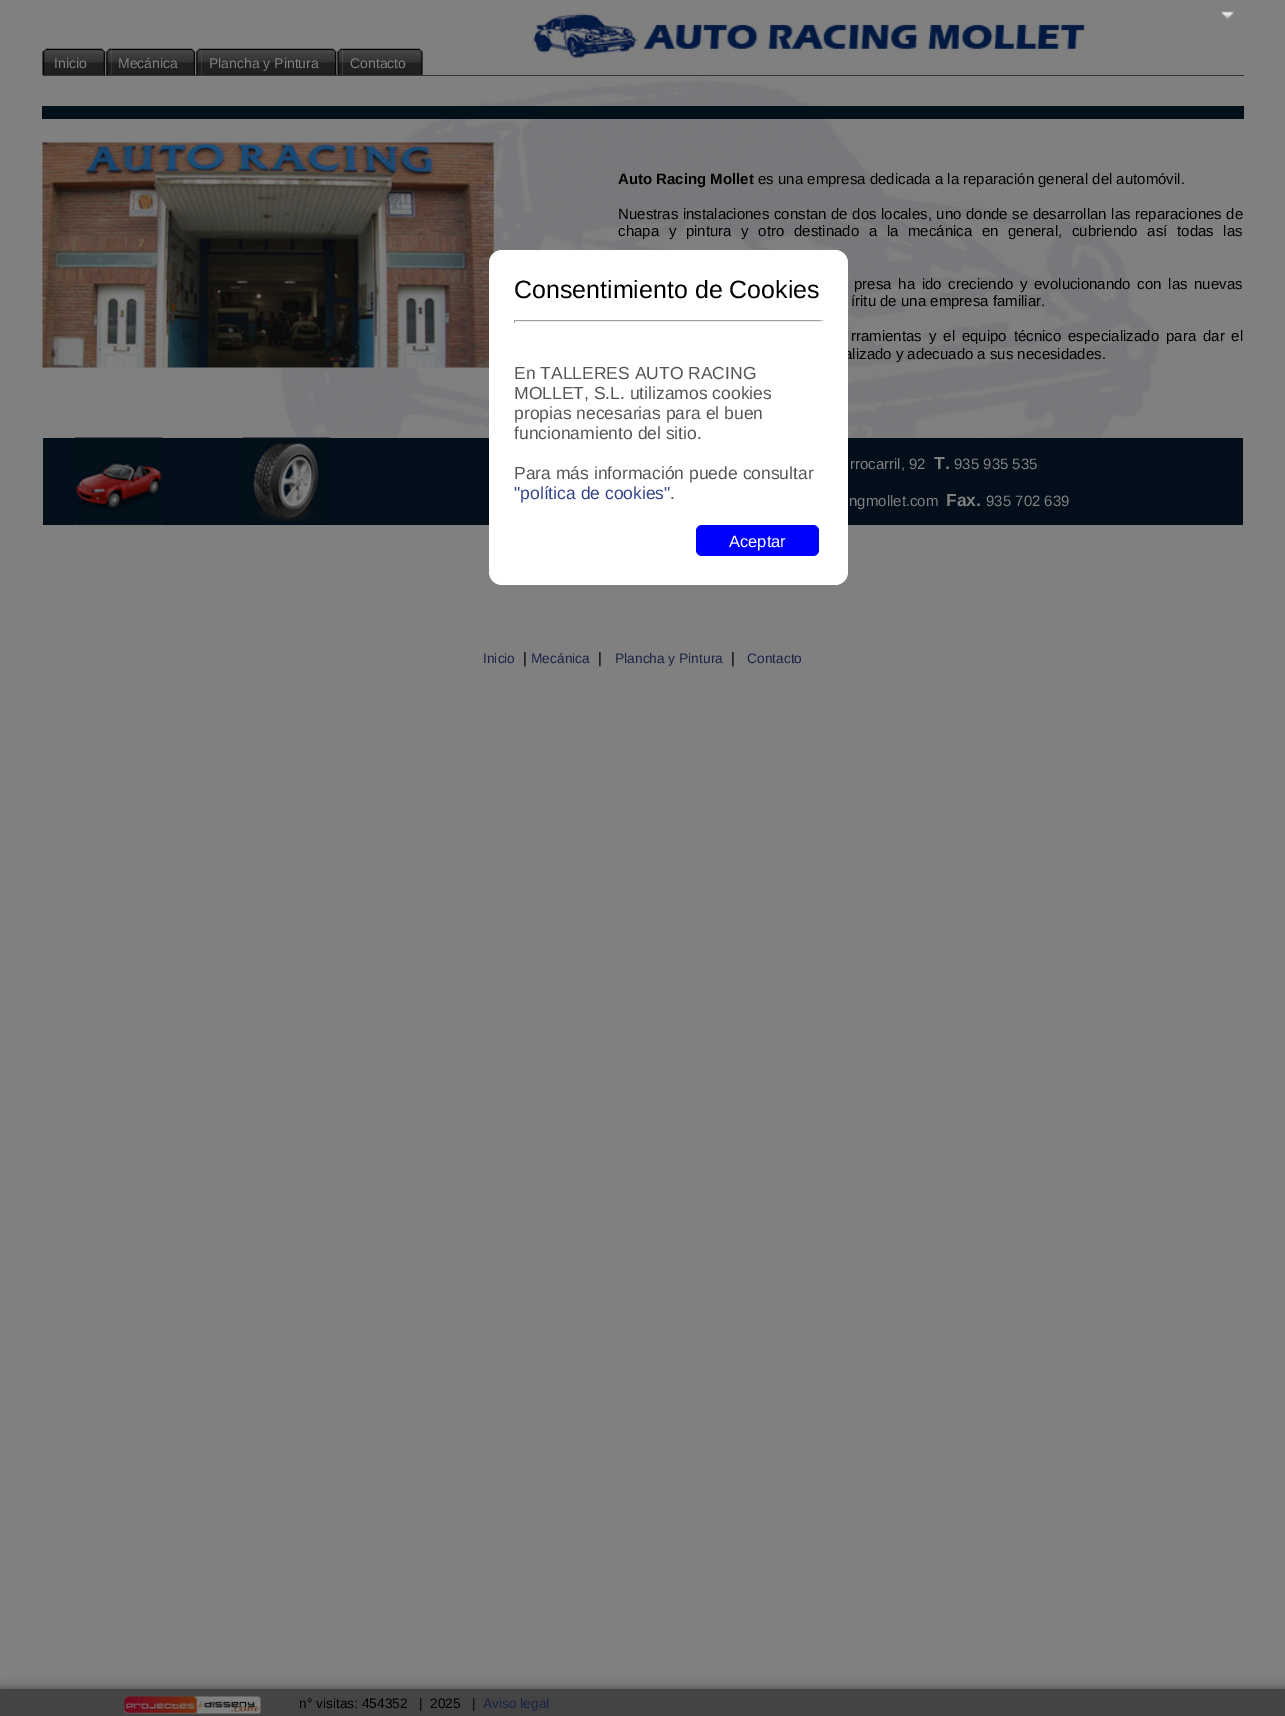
%!PS
<< /PageSize [1285 1716] /PageUsesTransparency true >> setpagedevice
/rgb { 3 { 255 div 3 1 roll } repeat setrgbcolor } def
/font { [ exch dup neg 0 0 3 -1 roll 0 0 ] selectfont } def
/alpha { dup .setfillconstantalpha .setstrokeconstantalpha } def
/roundrect { 5 dict begin { /r /h /w /y /x } { exch def } forall
  x r add y moveto x w add y 2 copy h add r arct x w add y h add x 1 index r arct
  x y h add x y r arct x y 2 copy exch w add exch r arct closepath end } def
/shadow { 12 dict begin { /a /b /q /h /w /y /x } { exch def } forall gsave /was 0 def
  9 -2 -9 { dup b mul 4 div /e exch def 1 sub .425 mul 2.718 exch exp 1 add a .99 .min exch div /now exch def
    1 1 now sub 1 was sub div sub alpha /was now def
    w h .min e 2 mul add 0 gt { x e sub y e sub w e 2 mul add h e 2 mul add
      q e add b .6 mul add w h .min 2 div e add .min 0 .max roundrect fill } if } for grestore end } def
/picture { 5 dict begin { /h /w /y /x /name } { exch def } forall
  gsave x y translate w h scale
  w h 8 [w 0 0 h 0 0] name (r) file false 3 colorimage grestore end } def
0 .pushpdf14devicefilter
0 1716 translate 1 -1 scale
4 setmiterlimit
128 128 128 rgb
0 0 1285 1716 rectfill
(img/1.rgb) 262 13 897 516 picture
(img/2.rgb) 1221 11 13 8 picture
51 51 51 rgb
43 75 1201 1 rectfill
(img/3.rgb) 42 48 7 27 picture
(img/4.rgb) 47 48 59 27 picture
(img/5.rgb) 106 48 6 27 picture
(img/6.rgb) 111 48 85 27 picture
(img/5.rgb) 196 48 6 27 picture
(img/7.rgb) 201 48 136 27 picture
(img/8.rgb) 337 48 6 27 picture
(img/9.rgb) 342 48 81 27 picture
2 16 26 rgb
42 106 1202 13 rectfill
(img/10.rgb) 42 142 452 226 picture
2 15 26 rgb
43 438 1200 87 rectfill
(img/11.rgb) 75 437 88 88 picture
(img/12.rgb) 242 437 88 86 picture
51 51 51 rgb
1 1690 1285 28 0 6 1 shadow
68 68 68 rgb
0 1689 1285 27 rectfill
(img/13.rgb) 124 1696 138 18 picture
/LiberationSans-Regular 14 font
128 128 128 rgb
[
  [(Inicio) 54 68]
  [(Mecánica) 118 68]
  [(Plancha y Pintura) 209 68]
  [(Contacto) 350 68]
] { aload pop moveto show } forall
/LiberationSans-Bold 15 font
0 0 0 rgb
618 184 moveto (Auto Racing Mollet) show
/LiberationSans-Regular 15 font
758 184 moveto (es una empresa dedicada a la reparación general del automóvil.) show
618 219 moveto 0.4 0 32 (Nuestras instalaciones constan de dos locales, uno donde se desarrollan las reparaciones de) widthshow
618 236 moveto 5.5 0 32 (chapa y pintura y otro destinado a la mecánica en general, cubriendo así todas las) widthshow
854 289 moveto 2.5 0 32 (presa ha ido creciendo y evolucionando con las nuevas) widthshow
851 306 moveto (íritu de una empresa familiar.) show
851 341 moveto 2.75 0 32 (rramientas y el equipo técnico especializado para dar el) widthshow
844 359 moveto (alizado y adecuado a sus necesidades.) show
128 128 128 rgb
850 469 moveto (rrocarril, 92) show
/LiberationSans-Bold 17.5 font
934 469 moveto (T.) show
/LiberationSans-Regular 15 font
954 469 moveto (935 935 535) show
849 506 moveto (ngmollet.com) show
/LiberationSans-Bold 17.5 font
946 506 moveto (Fax.) show
/LiberationSans-Regular 15 font
986 506 moveto (935 702 639) show
/LiberationSans-Regular 13.75 font
26 34 68 rgb
483 663 moveto (Inicio) show
/LiberationSans-Regular 15 font
0 0 0 rgb
523 663 moveto (|) show
/LiberationSans-Regular 13.75 font
26 34 68 rgb
531 663 moveto (Mecánica) show
/LiberationSans-Regular 15 font
0 0 0 rgb
598 663 moveto (|) show
/LiberationSans-Regular 13.75 font
26 34 68 rgb
615 663 moveto (Plancha y Pintura) show
/LiberationSans-Regular 15 font
0 0 0 rgb
731 663 moveto (|) show
/LiberationSans-Regular 13.75 font
26 34 68 rgb
747 663 moveto (Contacto) show
255 255 255 rgb
489 250 359 335 13 roundrect fill
/LiberationSans-Regular 25 font
0 0 0 rgb
514 298 moveto (Consentimiento de Cookies) show
[
  [514 320 309 1 159 159 159]
  [821 320 1 3 238 238 238]
  [514 321 309 1 238 238 238]
  [514 320 1 3 159 159 159]
] { aload pop rgb rectfill } forall
/LiberationSans-Regular 17.5 font
85 85 85 rgb
[
  [(En TALLERES AUTO RACING) 514 379]
  [(MOLLET, S.L. utilizamos cookies) 514 399]
  [(propias necesarias para el buen) 514 419]
  [(funcionamiento del sitio.) 514 439]
  [(Para más información puede consultar) 514 479]
] { aload pop moveto show } forall
51 68 136 rgb
514 499 moveto ("política de cookies") show
85 85 85 rgb
670 499 moveto (.) show
0 0 255 rgb
696 525 123 31 6 roundrect fill
/LiberationSans-Regular 16.5 font
255 255 255 rgb
729 547 moveto (Aceptar) show
/LiberationSans-Regular 13.75 font
0 0 0 rgb
[
  [(n° visitas: 454352) 299 1708]
  [(|) 419 1708]
  [(2025) 430 1708]
  [(|) 472 1708]
] { aload pop moveto show } forall
26 34 68 rgb
483 1708 moveto (Aviso legal) show
.poppdf14devicefilter showpage
